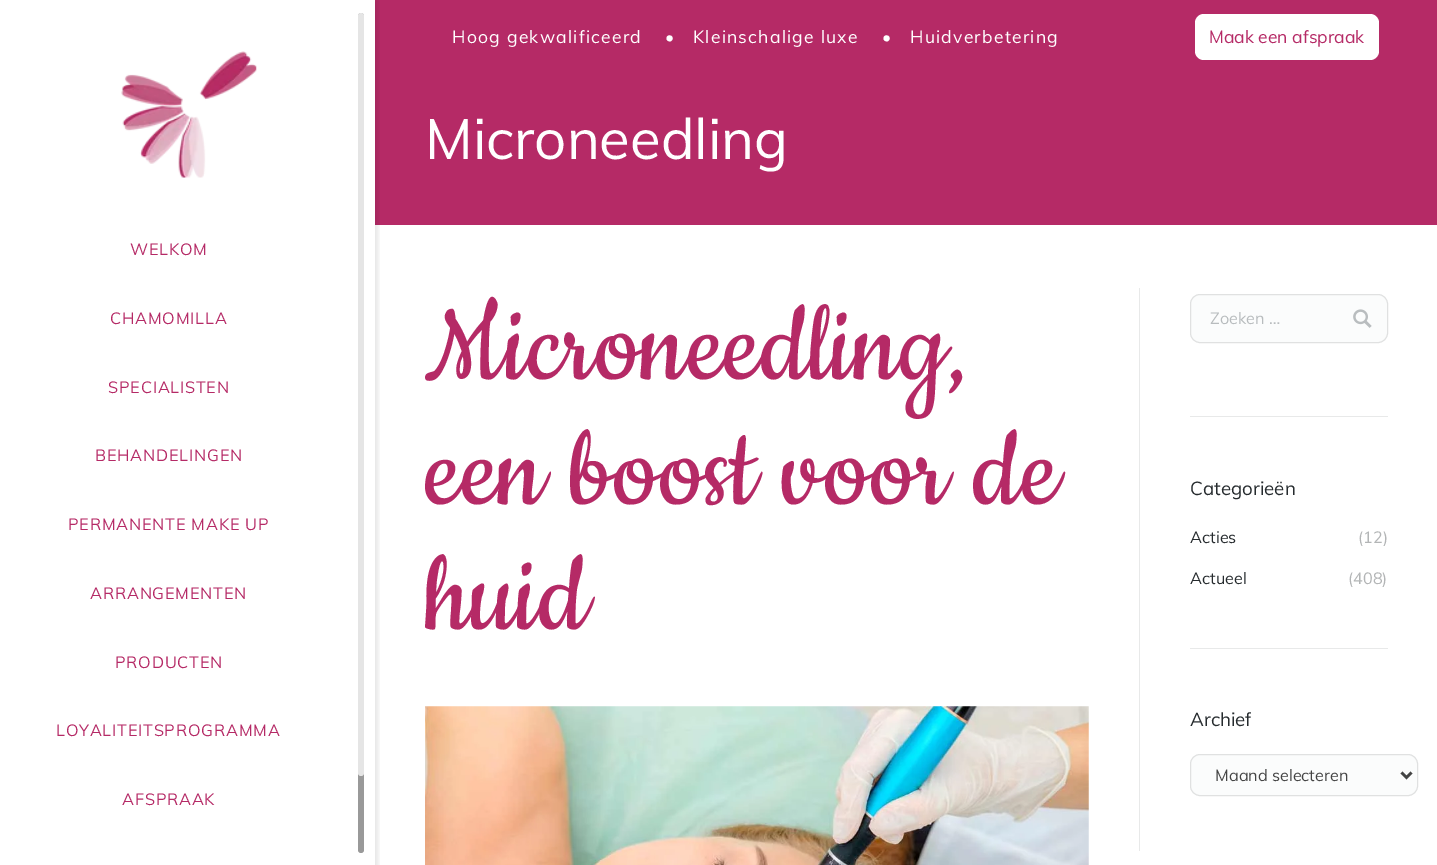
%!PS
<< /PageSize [1437 865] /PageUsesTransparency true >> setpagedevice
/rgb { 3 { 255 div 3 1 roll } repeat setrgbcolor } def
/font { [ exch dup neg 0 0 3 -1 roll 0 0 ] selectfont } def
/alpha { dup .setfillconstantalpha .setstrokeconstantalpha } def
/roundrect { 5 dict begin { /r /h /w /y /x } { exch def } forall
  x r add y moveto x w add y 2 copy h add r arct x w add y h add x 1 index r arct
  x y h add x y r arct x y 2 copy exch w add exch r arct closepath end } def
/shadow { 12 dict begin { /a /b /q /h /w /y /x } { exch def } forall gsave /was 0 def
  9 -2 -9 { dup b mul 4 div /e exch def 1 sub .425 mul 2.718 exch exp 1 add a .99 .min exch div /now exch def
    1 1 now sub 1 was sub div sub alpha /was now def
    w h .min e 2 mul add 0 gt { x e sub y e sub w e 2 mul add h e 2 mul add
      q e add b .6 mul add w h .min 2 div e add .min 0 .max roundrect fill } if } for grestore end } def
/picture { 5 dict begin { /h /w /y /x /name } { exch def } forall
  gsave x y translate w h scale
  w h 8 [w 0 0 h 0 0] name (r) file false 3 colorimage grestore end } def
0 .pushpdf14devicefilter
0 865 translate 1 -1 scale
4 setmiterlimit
255 255 255 rgb
0 0 1437 865 rectfill
181 42 102 rgb
375 0 1062 225 rectfill
255 255 255 rgb
1195 14 184 46 9 roundrect fill
gsave
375 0 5 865 rectclip
0 0 0 rgb
0 0 378 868 0 2.5 0.1 shadow
grestore
(img/1.rgb) 121 51 136 127 picture
153 153 153 rgb
358 13 6 840 3 roundrect fill
0.75 alpha
255 255 255 rgb
358 13 6 763 3 roundrect fill
1 alpha
(img/2.rgb) 425 706 664 159 picture
232 233 233 rgb
1139 288 1 563 rectfill
251 252 252 rgb
1190.5 294.5 197 48 9.5 roundrect gsave fill grestore
224 225 225 rgb
stroke
(img/3.rgb) 1353 309 19 19 picture
232 233 233 rgb
1190 416 198 1 rectfill
1190 648 198 1 rectfill
251 252 252 rgb
1190.5 754.5 227 41 9.5 roundrect gsave fill grestore
224 225 225 rgb
stroke
68 68 68 rgb
2.5 setlinewidth
1401.5 772.5 moveto 1406.5 777.5 lineto 1411.5 772.5 lineto stroke
/Muli-Regular 17.5 font
255 255 255 rgb
452 43 moveto 1.25 0 (Hoog gekwalificeerd) ashow
665 43 moveto 1.25 0 (•) ashow
693 43 moveto 1.25 0 (Kleinschalige luxe) ashow
882 43 moveto 1.25 0 (•) ashow
910 43 moveto 1.25 0 (Huidverbetering) ashow
181 42 102 rgb
1209 43 moveto (Maak een afspraak) show
/Muli-Regular 56.25 font
255 255 255 rgb
425 159 moveto (Microneedling) show
/Muli-Regular 16.25 font
181 42 102 rgb
130 255 moveto 0.8 0 (WELKOM) ashow
110 324 moveto 0.8 0 (CHAMOMILLA) ashow
108 393 moveto 0.8 0 (SPECIALISTEN) ashow
95 461 moveto 0.8 0 (BEHANDELINGEN) ashow
68 530 moveto 0.8 0 (PERMANENTE MAKE UP) ashow
90 599 moveto 0.8 0 (ARRANGEMENTEN) ashow
115 668 moveto 0.8 0 (PRODUCTEN) ashow
56 736 moveto 0.8 0 (LOYALITEITSPROGRAMMA) ashow
122 805 moveto 0.8 0 (AFSPRAAK) ashow
/Cookie-Regular 125 font
[
  [(Microneedling,) 425 379]
  [(een boost voor de) 425 504]
  [(huid) 425 629]
] { aload pop moveto show } forall
/Muli-Regular 16.25 font
184 188 190 rgb
1210 324 moveto (Zoeken …) show
/Muli-Regular 18.75 font
38 43 46 rgb
1190 495 moveto (Categorieën) show
/Muli-Regular 16.25 font
1190 543 moveto (Acties) show
179 181 182 rgb
1358 543 moveto (\(12\)) show
38 43 46 rgb
1190 584 moveto (Actueel) show
179 181 182 rgb
1348 584 moveto (\(408\)) show
/Muli-Regular 18.75 font
38 43 46 rgb
1190 726 moveto (Archief) show
/Muli-Regular 16.25 font
68 68 68 rgb
1215 781 moveto (Maand selecteren) show
.poppdf14devicefilter showpage
